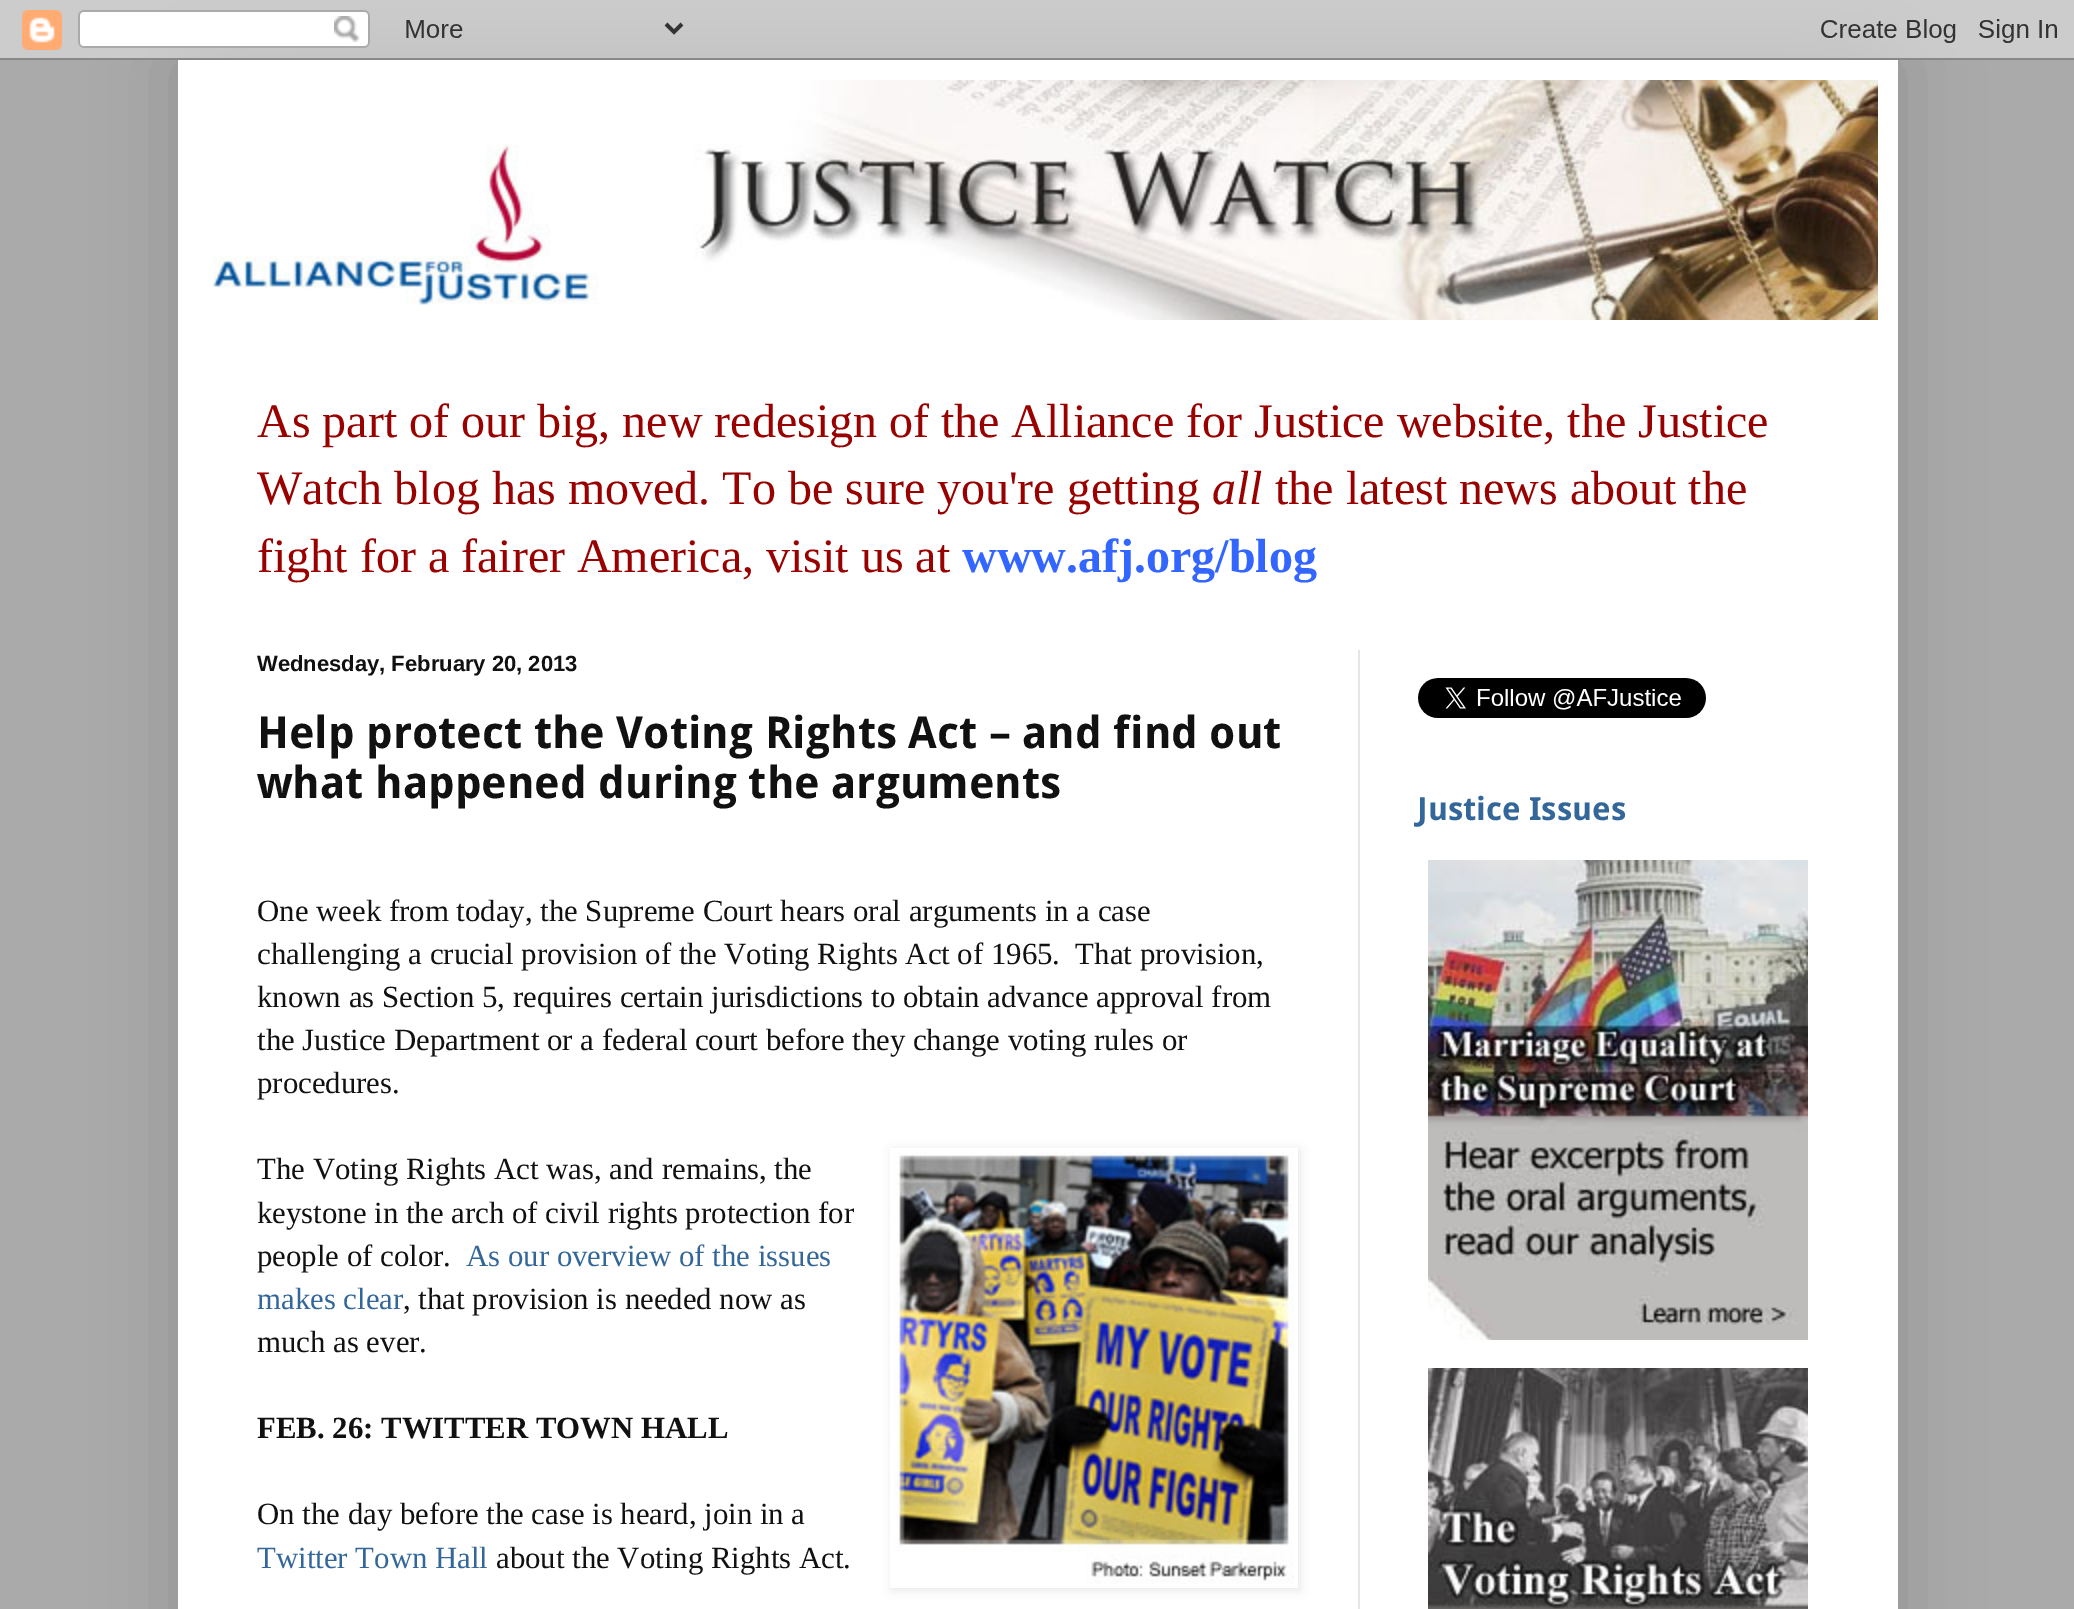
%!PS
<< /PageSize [2074 1609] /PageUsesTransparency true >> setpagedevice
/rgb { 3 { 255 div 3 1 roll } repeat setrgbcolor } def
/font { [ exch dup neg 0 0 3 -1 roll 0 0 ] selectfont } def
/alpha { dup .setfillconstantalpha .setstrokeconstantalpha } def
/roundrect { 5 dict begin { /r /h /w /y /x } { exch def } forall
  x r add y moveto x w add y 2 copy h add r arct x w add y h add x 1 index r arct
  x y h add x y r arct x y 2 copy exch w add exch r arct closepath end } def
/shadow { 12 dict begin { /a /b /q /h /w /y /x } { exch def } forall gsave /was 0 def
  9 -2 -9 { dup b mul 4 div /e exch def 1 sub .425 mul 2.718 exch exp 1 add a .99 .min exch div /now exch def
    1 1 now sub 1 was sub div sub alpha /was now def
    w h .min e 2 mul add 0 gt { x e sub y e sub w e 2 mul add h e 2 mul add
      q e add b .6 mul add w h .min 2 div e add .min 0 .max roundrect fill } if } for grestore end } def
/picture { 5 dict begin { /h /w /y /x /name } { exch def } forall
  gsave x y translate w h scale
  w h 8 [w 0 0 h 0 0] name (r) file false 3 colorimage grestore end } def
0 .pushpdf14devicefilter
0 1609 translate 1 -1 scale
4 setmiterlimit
170 170 170 rgb
0 0 2074 1609 rectfill
0 0 0 rgb
178 60 1720 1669 0 40 0.15 shadow
(img/1.rgb) 0 0 2074 60 picture
255 255 255 rgb
178 60 1720 1549 rectfill
(img/2.rgb) 213 80 1665 240 picture
229 229 229 rgb
1358 650 2 959 rectfill
gsave
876 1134 moveto 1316 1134 lineto 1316 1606 lineto 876 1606 lineto closepath 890 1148 moveto 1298 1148 lineto 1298 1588 lineto 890 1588 lineto closepath eoclip newpath
0 0 0 rgb
892 1150 408 440 0 5 0.1 shadow
grestore
(img/3.rgb) 894 1152 400 432 picture
(img/4.rgb) 1418 678 288 40 picture
(img/5.rgb) 1428 860 380 480 picture
(img/6.rgb) 1428 1368 380 241 picture
/LiberationSerif-Regular 48 font
153 0 0 rgb
257 437 moveto (As part of our big, new redesign of the Alliance for Justice website, the Justice) show
257 504 moveto (Watch blog has moved. To be sure you're getting) show
/LiberationSerif-Italic 48 font
1212 504 moveto (all) show
/LiberationSerif-Regular 48 font
1275 504 moveto (the latest news about the) show
257 572 moveto (fight for a fairer America, visit us at) show
/LiberationSerif-Bold 48 font
51 102 255 rgb
962 572 moveto (www.afj.org/blog) show
/LiberationSans-Bold 22 font
17 17 17 rgb
257 671 moveto (Wednesday, February 20, 2013) show
/DroidSans-Bold 44 font
257 748 moveto (Help protect the Voting Rights Act – and find out) show
257 798 moveto (what happened during the arguments) show
/LiberationSerif-Regular 30.8 font
[
  [(One week from today, the Supreme Court hears oral arguments in a case) 257 921]
  [(challenging a crucial provision of the Voting Rights Act of 1965.  That provision,) 257 964]
  [(known as Section 5, requires certain jurisdictions to obtain advance approval from) 257 1007]
  [(the Justice Department or a federal court before they change voting rules or) 257 1050]
  [(procedures.) 257 1093]
  [(The Voting Rights Act was, and remains, the) 257 1179]
  [(keystone in the arch of civil rights protection for) 257 1223]
  [(people of color.) 257 1266]
] { aload pop moveto show } forall
51 103 153 rgb
466 1266 moveto (As our overview of the issues) show
257 1309 moveto (makes clear) show
17 17 17 rgb
403 1309 moveto (, that provision is needed now as) show
257 1352 moveto (much as ever.) show
/LiberationSerif-Bold 30.8 font
257 1438 moveto (FEB. 26: TWITTER TOWN HALL) show
/LiberationSerif-Regular 30.8 font
257 1524 moveto (On the day before the case is heard, join in a) show
51 103 153 rgb
257 1568 moveto (Twitter Town Hall) show
17 17 17 rgb
496 1568 moveto (about the Voting Rights Act.) show
/DroidSans-Bold 32 font
51 103 153 rgb
1417 820 moveto (Justice Issues) show
.poppdf14devicefilter showpage
